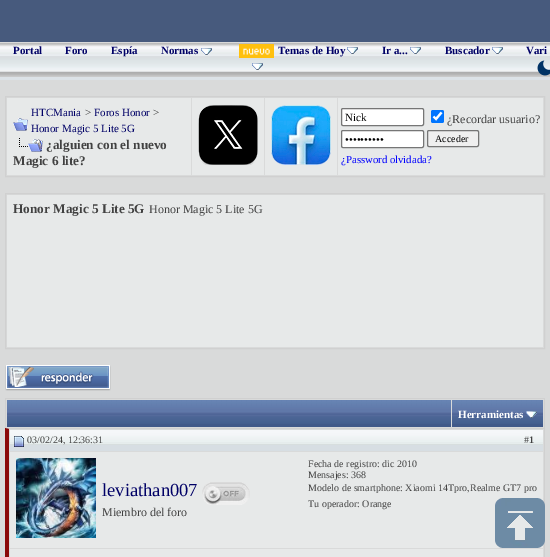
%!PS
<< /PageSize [550 557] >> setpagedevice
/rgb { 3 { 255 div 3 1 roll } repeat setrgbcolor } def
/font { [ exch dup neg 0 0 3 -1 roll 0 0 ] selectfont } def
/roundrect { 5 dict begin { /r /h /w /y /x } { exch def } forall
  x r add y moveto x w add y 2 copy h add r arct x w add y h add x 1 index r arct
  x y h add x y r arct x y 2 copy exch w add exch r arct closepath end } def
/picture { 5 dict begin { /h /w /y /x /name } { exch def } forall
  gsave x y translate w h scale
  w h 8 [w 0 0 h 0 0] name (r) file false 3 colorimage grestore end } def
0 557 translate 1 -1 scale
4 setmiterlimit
71 90 125 rgb
0 0 550 557 rectfill
220 226 231 rgb
0 77 550 3 rectfill
(img/1.rgb) 0 42 550 35 picture
(img/2.rgb) 201 48 11 7 picture
(img/3.rgb) 239 44 35 14 picture
(img/4.rgb) 347 47 11 7 picture
(img/4.rgb) 410 47 11 7 picture
(img/4.rgb) 492 47 11 7 picture
(img/5.rgb) 252 63 11 7 picture
(img/6.rgb) 537 60 13 16 picture
217 218 218 rgb
0 80 550 477 rectfill
208 208 208 rgb
5.5 96.5 539 80 rectstroke
231 233 233 rgb
7 98 184 77 rectfill
(img/7.rgb) 13 118 15 13 picture
(img/8.rgb) 19 138 24 14 picture
192 98 72 77 rectfill
(img/9.rgb) 198 105 60 60 picture
265 98 72 77 rectfill
(img/10.rgb) 271 105 60 60 picture
338 98 205 77 rectfill
255 255 255 rgb
341.5 108.5 82 17 1.5 roundrect gsave fill grestore
118 118 118 rgb
stroke
0 117 255 rgb
431 110 13 13 2 roundrect fill
255 255 255 rgb
2.1 setlinewidth
433.5 116.5 moveto 436 119 lineto 441.5 112.5 lineto stroke
341.5 130.5 82 17 1.5 roundrect gsave fill grestore
118 118 118 rgb
1 setlinewidth
stroke
239 239 239 rgb
427.5 130.5 51 16 1.5 roundrect gsave fill grestore
118 118 118 rgb
stroke
208 208 208 rgb
5.5 193.5 539 155 rectstroke
231 233 233 rgb
7 195 536 152 rectfill
(img/11.rgb) 5 365 106 26 picture
[
  [5 398 540 1 208 208 208]
  [544 398 1 30 208 208 208]
  [5 398 1 30 208 208 208]
  [7 424 444 3 65 89 137]
] { aload pop rgb rectfill } forall
(img/12.rgb) 7 400 444 24 picture
452 424 91 3 rectfill
(img/13.rgb) 452 400 91 24 picture
(img/14.rgb) 526 411 11 7 picture
208 208 208 rgb
5 428 moveto 545 428 lineto 544 429 lineto 9 429 lineto closepath fill
544 428 1 129 rectfill
138 8 8 rgb
5 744 moveto 5 428 lineto 9 429 lineto 9 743 lineto closepath fill
215 222 227 rgb
10 445 533 6 rectfill
(img/15.rgb) 10 430 533 15 picture
(img/16.rgb) 14 436 10 11 picture
231 233 233 rgb
10 452 533 96 rectfill
(img/17.rgb) 16 458 80 80 picture
(img/18.rgb) 202 482 48 23 picture
10 549 533 8 rectfill
(img/19.rgb) 495 498 50 50 picture
/LiberationSerif-Bold 11 font
0 0 102 rgb
[
  [(Portal) 13 54]
  [(Foro) 65 54]
  [(Espía) 111 54]
  [(Normas) 161 54]
  [(Temas de Hoy) 278 54]
  [(Ir a...) 382 54]
  [(Buscador) 445 54]
  [(Vari) 526 54]
] { aload pop moveto show } forall
/LiberationSerif-Regular 11 font
31 116 moveto (HTCMania) show
65 65 65 rgb
85 116 moveto (>) show
0 0 102 rgb
94 116 moveto (Foros Honor) show
65 65 65 rgb
153 116 moveto (>) show
0 0 102 rgb
31 132 moveto (Honor Magic 5 Lite 5G) show
/LiberationSerif-Bold 13.25 font
65 65 65 rgb
46 149 moveto (¿alguien con el nuevo) show
13 165 moveto (Magic 6 lite?) show
/LiberationSerif-Regular 11 font
0 0 0 rgb
345 121 moveto (Nick) show
/LiberationSerif-Regular 12 font
65 65 65 rgb
447 123 moveto (¿Recordar usuario?) show
/LiberationSerif-Regular 11 font
0 0 0 rgb
345 143 moveto (••••••••••) show
/LiberationSerif-Regular 10 font
435 142 moveto (Acceder) show
/LiberationSerif-Regular 10.75 font
0 0 255 rgb
341 163 moveto (¿Password olvidada?) show
/LiberationSerif-Bold 13.25 font
65 65 65 rgb
13 213 moveto (Honor Magic 5 Lite 5G) show
/LiberationSerif-Regular 12 font
149 213 moveto (Honor Magic 5 Lite 5G) show
/LiberationSerif-Bold 11 font
255 255 255 rgb
458 418 moveto (Herramientas) show
/LiberationSerif-Regular 10 font
65 65 65 rgb
27 443 moveto (03/02/24, 12:36:31) show
524 443 moveto (#) show
/LiberationSerif-Bold 10 font
529 443 moveto (1) show
/LiberationSerif-Regular 18.5 font
0 0 102 rgb
102 496 moveto (leviathan007) show
/LiberationSerif-Regular 12 font
65 65 65 rgb
102 516 moveto (Miembro del foro) show
/LiberationSerif-Regular 10 font
[
  [(Fecha de registro: dic 2010) 308 467]
  [(Mensajes: 368) 308 478]
  [(Modelo de smartphone: Xiaomi 14Tpro,Realme GT7 pro) 308 491]
  [(Tu operador: Orange) 308 507]
] { aload pop moveto show } forall
showpage
